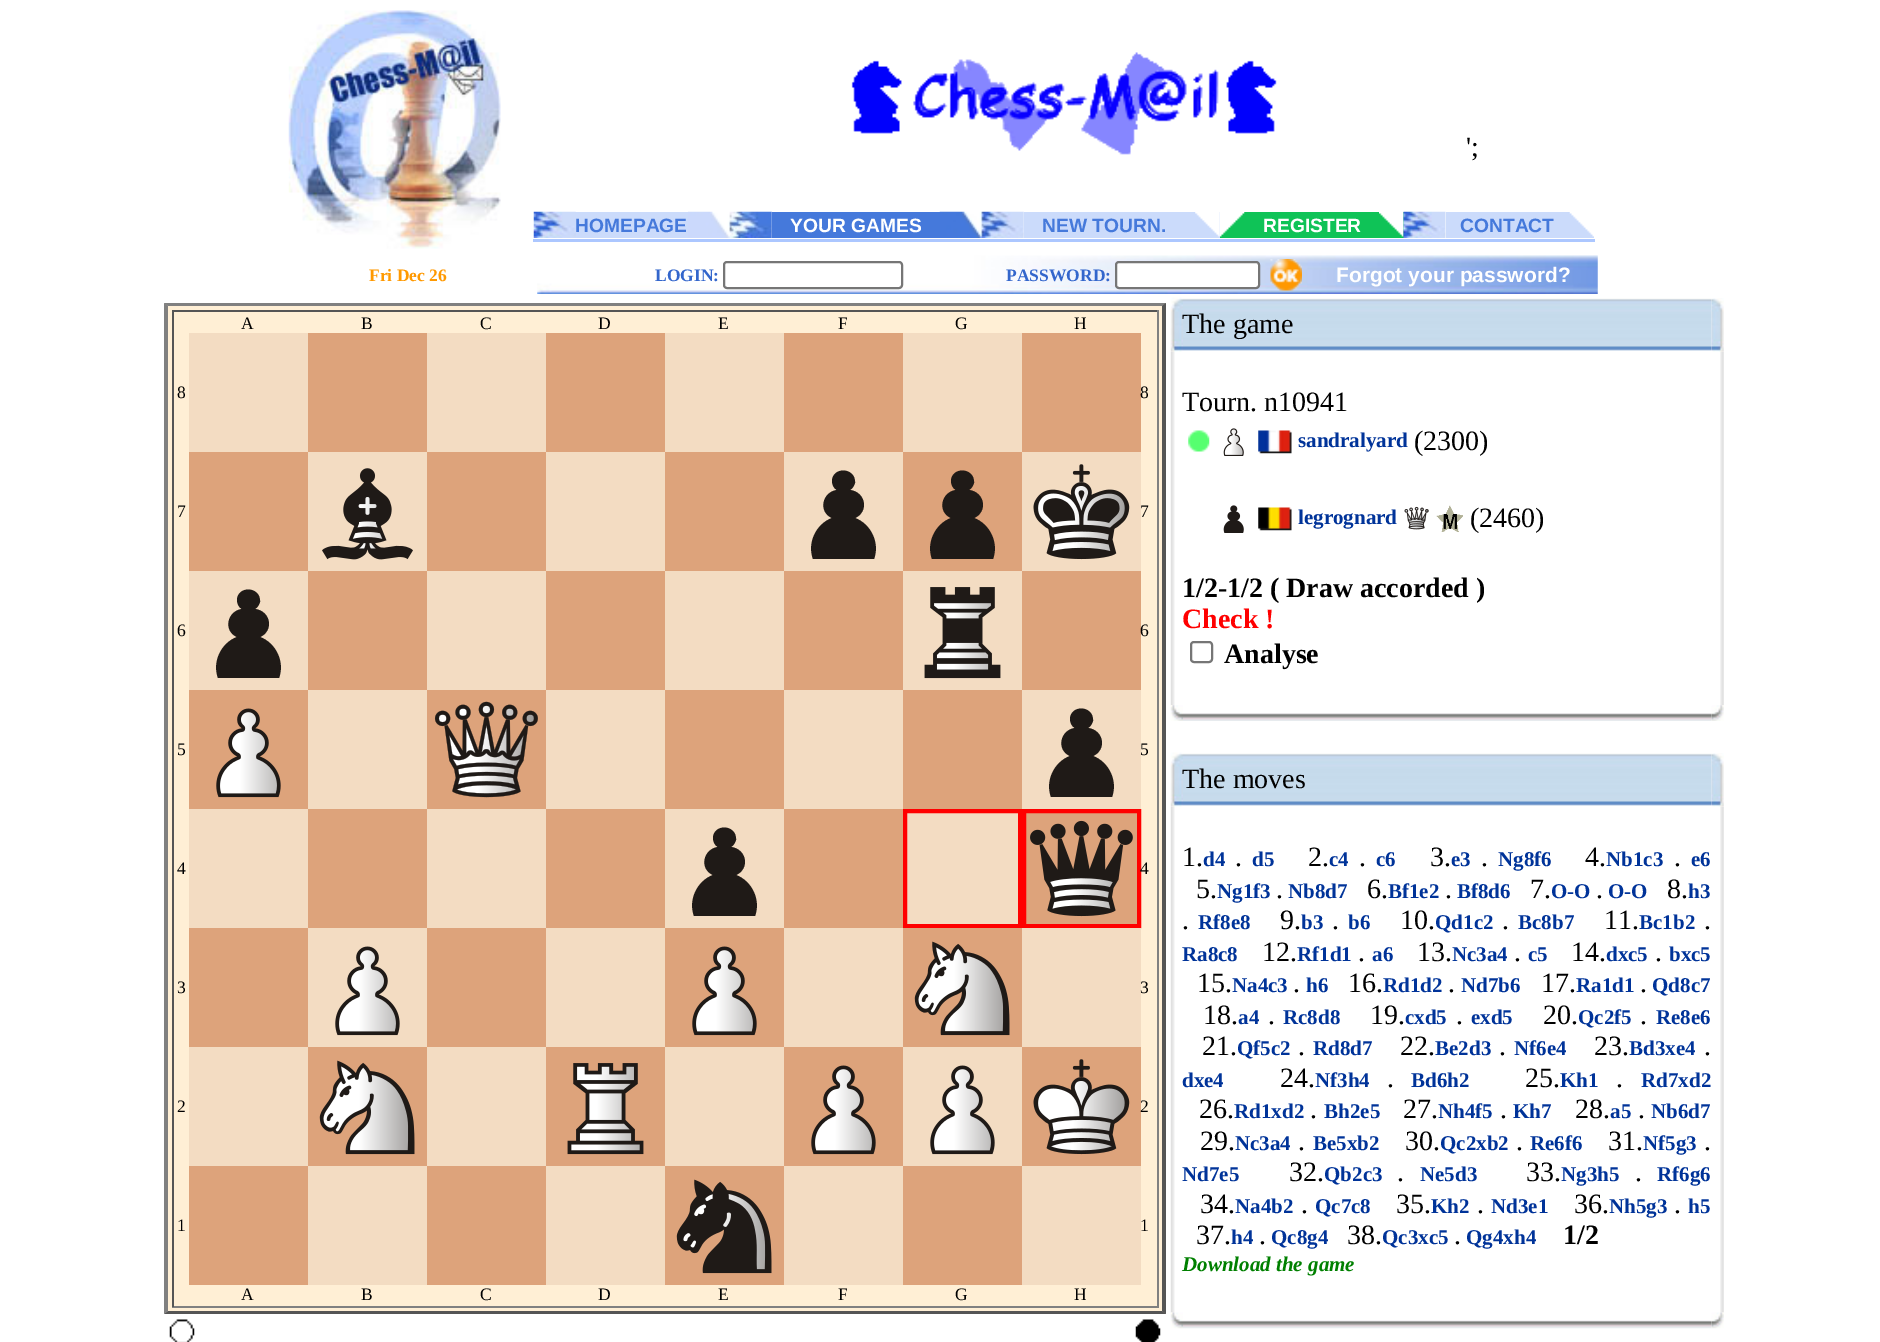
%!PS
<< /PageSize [1880 1342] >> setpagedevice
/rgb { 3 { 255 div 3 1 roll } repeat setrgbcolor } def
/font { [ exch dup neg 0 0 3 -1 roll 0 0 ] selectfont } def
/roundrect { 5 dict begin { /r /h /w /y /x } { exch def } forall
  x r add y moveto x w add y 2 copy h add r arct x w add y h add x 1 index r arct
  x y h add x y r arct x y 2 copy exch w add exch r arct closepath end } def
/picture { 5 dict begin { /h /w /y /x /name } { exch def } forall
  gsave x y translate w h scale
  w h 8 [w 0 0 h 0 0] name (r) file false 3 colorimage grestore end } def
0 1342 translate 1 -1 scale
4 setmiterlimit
255 255 255 rgb
0 0 1880 1342 rectfill
(img/1.rgb) 288 10 213 239 picture
(img/2.rgb) 851 52 426 103 picture
(img/3.rgb) 533 211 43 27 picture
203 219 251 rgb
576 212 112 26 rectfill
(img/4.rgb) 688 211 84 27 picture
69 121 219 rgb
772 212 168 26 rectfill
(img/5.rgb) 939 211 85 27 picture
203 219 251 rgb
1024 212 196 26 rectfill
(img/6.rgb) 1195 212 25 25 picture
15 195 87 rgb
1220 213 24 25 rectfill
1244 212 160 26 rectfill
(img/7.rgb) 1220 212 25 25 picture
(img/8.rgb) 1379 212 25 25 picture
(img/9.rgb) 1403 211 43 27 picture
203 219 251 rgb
1446 212 124 26 rectfill
1570 213 24 25 rectfill
(img/10.rgb) 1569 212 25 25 picture
172 199 255 rgb
533 239 1062 3 rectfill
(img/11.rgb) 537 255 1061 39 picture
255 255 255 rgb
724 262 178 26 3 roundrect gsave fill grestore
118 118 118 rgb
2 setlinewidth
stroke
255 255 255 rgb
1116 262 143 26 3 roundrect gsave fill grestore
118 118 118 rgb
stroke
(img/12.rgb) 1270 259 32 32 picture
255 239 213 rgb
165 303 1001 1011 rectfill
128 128 128 rgb
164 303 moveto 1166 303 lineto 1162 306 lineto 168 306 lineto closepath fill
85 85 85 rgb
1166 303 moveto 1166 1314 lineto 1162 1311 lineto 1162 306 lineto closepath fill
1166 1314 moveto 164 1314 lineto 168 1311 lineto 1162 1311 lineto closepath fill
128 128 128 rgb
164 1314 moveto 164 303 lineto 168 306 lineto 168 1311 lineto closepath fill
[
  [172 310 987 2 85 85 85]
  [1157 310 2 997 128 128 128]
  [172 1306 987 2 128 128 128]
  [172 310 2 997 85 85 85]
  [189 333 119 119 243 220 194]
  [308 333 119 119 221 163 123]
  [427 333 119 119 243 220 194]
  [546 333 119 119 221 163 123]
  [665 333 119 119 243 220 194]
  [784 333 119 119 221 163 123]
  [903 333 119 119 243 220 194]
  [1022 333 119 119 221 163 123]
  [189 452 119 119 221 163 123]
  [308 452 119 119 243 220 194]
] { aload pop rgb rectfill } forall
(img/13.rgb) 322 468 91 92 picture
[
  [427 452 119 119 221 163 123]
  [546 452 119 119 243 220 194]
  [665 452 119 119 221 163 123]
  [784 452 119 119 243 220 194]
] { aload pop rgb rectfill } forall
31 26 23 rgb
844 559 moveto 813 559 lineto 807 543 816 524 832 518 curveto 818 512 822 492 837 490 curveto 833 488 832 484 832 480 curveto 834 466 856 468 855 483 curveto 854 486 853 488 850 490 curveto 866 492 869 512 855 518 curveto 871 524 880 543 874 559 curveto closepath eofill
221 163 123 rgb
903 452 119 119 rectfill
31 26 23 rgb
962 559 moveto 932 559 lineto 926 543 935 524 951 518 curveto 937 512 941 492 956 490 curveto 952 488 951 484 951 480 curveto 953 466 975 468 974 483 curveto 973 486 972 488 969 490 curveto 985 492 988 512 974 518 curveto 990 524 999 543 993 559 curveto closepath eofill
243 220 194 rgb
1022 452 119 119 rectfill
(img/14.rgb) 1033 464 97 96 picture
189 571 119 119 rectfill
31 26 23 rgb
248 678 moveto 218 678 lineto 212 662 221 643 237 637 curveto 223 631 227 611 242 609 curveto 238 607 237 603 237 599 curveto 239 585 261 587 260 602 curveto 259 605 258 607 255 609 curveto 271 611 274 631 260 637 curveto 276 643 285 662 279 678 curveto closepath eofill
[
  [308 571 119 119 221 163 123]
  [427 571 119 119 243 220 194]
  [546 571 119 119 221 163 123]
  [665 571 119 119 243 220 194]
  [784 571 119 119 221 163 123]
  [903 571 119 119 243 220 194]
] { aload pop rgb rectfill } forall
(img/15.rgb) 924 587 77 92 picture
221 163 123 rgb
1022 571 119 119 rectfill
189 690 119 119 rectfill
(img/16.rgb) 216 708 65 90 picture
243 220 194 rgb
308 690 119 119 rectfill
221 163 123 rgb
427 690 119 119 rectfill
(img/17.rgb) 434 701 104 97 picture
[
  [546 690 119 119 243 220 194]
  [665 690 119 119 221 163 123]
  [784 690 119 119 243 220 194]
  [903 690 119 119 221 163 123]
  [1022 690 119 119 243 220 194]
] { aload pop rgb rectfill } forall
31 26 23 rgb
1082 797 moveto 1051 797 lineto 1045 781 1054 762 1070 756 curveto 1056 750 1060 730 1075 728 curveto 1071 726 1070 722 1070 718 curveto 1072 704 1094 706 1093 721 curveto 1092 724 1091 726 1088 728 curveto 1104 730 1107 750 1093 756 curveto 1109 762 1118 781 1112 797 curveto closepath eofill
[
  [189 809 119 119 243 220 194]
  [308 809 119 119 221 163 123]
  [427 809 119 119 243 220 194]
  [546 809 119 119 221 163 123]
  [665 809 119 119 243 220 194]
] { aload pop rgb rectfill } forall
31 26 23 rgb
724 916 moveto 694 916 lineto 688 900 697 881 713 875 curveto 699 869 703 849 718 847 curveto 714 845 713 841 713 837 curveto 715 823 737 825 736 840 curveto 735 843 734 845 731 847 curveto 747 849 750 869 736 875 curveto 752 881 761 900 755 916 curveto closepath eofill
221 163 123 rgb
784 809 119 119 rectfill
243 220 194 rgb
905 811 moveto 1020 811 lineto 1020 926 lineto 905 926 lineto closepath gsave fill grestore
255 0 0 rgb
4 setlinewidth
stroke
221 163 123 rgb
1024 811 moveto 1139 811 lineto 1139 926 lineto 1024 926 lineto closepath gsave fill grestore
255 0 0 rgb
stroke
(img/18.rgb) 1030 820 103 97 picture
221 163 123 rgb
189 928 119 119 rectfill
243 220 194 rgb
308 928 119 119 rectfill
(img/19.rgb) 335 946 65 90 picture
[
  [427 928 119 119 221 163 123]
  [546 928 119 119 243 220 194]
  [665 928 119 119 221 163 123]
] { aload pop rgb rectfill } forall
(img/16.rgb) 692 946 65 90 picture
243 220 194 rgb
784 928 119 119 rectfill
221 163 123 rgb
903 928 119 119 rectfill
(img/20.rgb) 914 941 96 95 picture
[
  [1022 928 119 119 243 220 194]
  [189 1047 119 119 243 220 194]
  [308 1047 119 119 221 163 123]
] { aload pop rgb rectfill } forall
(img/20.rgb) 319 1060 96 95 picture
243 220 194 rgb
427 1047 119 119 rectfill
221 163 123 rgb
546 1047 119 119 rectfill
(img/21.rgb) 567 1063 77 92 picture
243 220 194 rgb
665 1047 119 119 rectfill
221 163 123 rgb
784 1047 119 119 rectfill
(img/16.rgb) 811 1065 65 90 picture
243 220 194 rgb
903 1047 119 119 rectfill
(img/19.rgb) 930 1065 65 90 picture
221 163 123 rgb
1022 1047 119 119 rectfill
(img/22.rgb) 1033 1059 97 96 picture
[
  [189 1166 119 119 221 163 123]
  [308 1166 119 119 243 220 194]
  [427 1166 119 119 221 163 123]
  [546 1166 119 119 243 220 194]
  [665 1166 119 119 221 163 123]
] { aload pop rgb rectfill } forall
(img/23.rgb) 676 1179 96 95 picture
[
  [784 1166 119 119 243 220 194]
  [903 1166 119 119 221 163 123]
  [1022 1166 119 119 243 220 194]
] { aload pop rgb rectfill } forall
(img/24.rgb) 169 1319 26 23 picture
(img/25.rgb) 1135 1319 26 23 picture
(img/26.rgb) 1170 297 13 55 picture
(img/27.rgb) 1183 298 529 53 picture
(img/28.rgb) 1711 298 13 54 picture
(img/29.rgb) 1170 352 5 354 picture
(img/30.rgb) 1188 430 22 22 picture
(img/31.rgb) 1223 428 21 28 picture
(img/32.rgb) 1258 430 34 24 picture
(img/33.rgb) 1223 505 21 28 picture
(img/34.rgb) 1258 507 34 24 picture
(img/35.rgb) 1404 506 25 24 picture
(img/36.rgb) 1436 505 27 27 picture
118 118 118 rgb
2 setlinewidth
1191 642 21 20 3 roundrect stroke
(img/37.rgb) 1720 352 4 354 picture
(img/38.rgb) 1170 705 13 16 picture
(img/39.rgb) 1183 713 529 8 picture
(img/40.rgb) 1711 705 13 16 picture
(img/26.rgb) 1170 752 13 55 picture
(img/27.rgb) 1183 753 529 53 picture
(img/28.rgb) 1711 753 13 54 picture
(img/41.rgb) 1170 807 5 506 picture
(img/42.rgb) 1720 807 4 506 picture
(img/43.rgb) 1170 1312 13 17 picture
(img/44.rgb) 1183 1320 529 9 picture
(img/45.rgb) 1711 1312 13 17 picture
/LiberationSerif-Regular 28 font
0 0 0 rgb
1466 156 moveto (';) show
/LiberationSans-Bold 19.25 font
69 121 219 rgb
575 232 moveto (HOMEPAGE) show
255 255 255 rgb
790 232 moveto (YOUR GAMES) show
69 121 219 rgb
1042 232 moveto (NEW TOURN.) show
255 255 255 rgb
1263 232 moveto (REGISTER) show
69 121 219 rgb
1460 232 moveto (CONTACT) show
/LiberationSerif-Bold 17.5 font
255 153 0 rgb
369 281 moveto (Fri Dec 26) show
51 102 204 rgb
655 281 moveto (LOGIN:) show
1006 281 moveto (PASSWORD:) show
/LiberationSans-Bold 21 font
255 255 255 rgb
1336 282 moveto (Forgot your password?) show
/LiberationSerif-Regular 17.5 font
0 0 0 rgb
[
  [(A) 241 329]
  [(B) 361 329]
  [(C) 480 329]
  [(D) 598 329]
  [(E) 718 329]
  [(F) 838 329]
  [(G) 955 329]
  [(H) 1074 329]
  [(8) 177 398]
  [(8) 1140 398]
  [(7) 177 517]
  [(7) 1140 517]
  [(6) 177 636]
  [(6) 1140 636]
  [(5) 177 755]
  [(5) 1140 755]
  [(4) 177 874]
  [(4) 1140 874]
  [(3) 177 993]
  [(3) 1140 993]
  [(2) 177 1112]
  [(2) 1140 1112]
  [(1) 177 1231]
  [(1) 1140 1231]
  [(A) 241 1300]
  [(B) 361 1300]
  [(C) 480 1300]
  [(D) 598 1300]
  [(E) 718 1300]
  [(F) 838 1300]
  [(G) 955 1300]
  [(H) 1074 1300]
] { aload pop moveto show } forall
/LiberationSerif-Regular 28 font
1182 333 moveto (The game) show
1182 411 moveto (Tourn. n10941) show
/LiberationSerif-Bold 21 font
0 51 153 rgb
1298 447 moveto (sandralyard) show
/LiberationSerif-Regular 28 font
0 0 0 rgb
1414 450 moveto (\(2300\)) show
/LiberationSerif-Bold 21 font
0 51 153 rgb
1298 524 moveto (legrognard) show
/LiberationSerif-Regular 28 font
0 0 0 rgb
1470 527 moveto (\(2460\)) show
/LiberationSerif-Bold 28 font
1182 597 moveto (1/2-1/2 \( Draw accorded \)) show
255 0 0 rgb
1182 628 moveto (Check !) show
0 0 0 rgb
1224 663 moveto (Analyse) show
/LiberationSerif-Regular 28 font
1182 788 moveto (The moves) show
1182 866 moveto (1.) show
/LiberationSerif-Bold 21 font
0 51 153 rgb
1203 866 moveto (d4) show
/LiberationSerif-Regular 28 font
0 0 0 rgb
1235 866 moveto (.) show
/LiberationSerif-Bold 21 font
0 51 153 rgb
1252 866 moveto (d5) show
/LiberationSerif-Regular 28 font
0 0 0 rgb
1308 866 moveto (2.) show
/LiberationSerif-Bold 21 font
0 51 153 rgb
1329 866 moveto (c4) show
/LiberationSerif-Regular 28 font
0 0 0 rgb
1359 866 moveto (.) show
/LiberationSerif-Bold 21 font
0 51 153 rgb
1376 866 moveto (c6) show
/LiberationSerif-Regular 28 font
0 0 0 rgb
1430 866 moveto (3.) show
/LiberationSerif-Bold 21 font
0 51 153 rgb
1451 866 moveto (e3) show
/LiberationSerif-Regular 28 font
0 0 0 rgb
1481 866 moveto (.) show
/LiberationSerif-Bold 21 font
0 51 153 rgb
1498 866 moveto (Ng8f6) show
/LiberationSerif-Regular 28 font
0 0 0 rgb
1585 866 moveto (4.) show
/LiberationSerif-Bold 21 font
0 51 153 rgb
1606 866 moveto (Nb1c3) show
/LiberationSerif-Regular 28 font
0 0 0 rgb
1674 866 moveto (.) show
/LiberationSerif-Bold 21 font
0 51 153 rgb
1691 866 moveto (e6) show
/LiberationSerif-Regular 28 font
0 0 0 rgb
1196 898 moveto (5.) show
/LiberationSerif-Bold 21 font
0 51 153 rgb
1217 898 moveto (Ng1f3) show
/LiberationSerif-Regular 28 font
0 0 0 rgb
1276 898 moveto (.) show
/LiberationSerif-Bold 21 font
0 51 153 rgb
1288 898 moveto (Nb8d7) show
/LiberationSerif-Regular 28 font
0 0 0 rgb
1367 898 moveto (6.) show
/LiberationSerif-Bold 21 font
0 51 153 rgb
1388 898 moveto (Bf1e2) show
/LiberationSerif-Regular 28 font
0 0 0 rgb
1445 898 moveto (.) show
/LiberationSerif-Bold 21 font
0 51 153 rgb
1457 898 moveto (Bf8d6) show
/LiberationSerif-Regular 28 font
0 0 0 rgb
1530 898 moveto (7.) show
/LiberationSerif-Bold 21 font
0 51 153 rgb
1551 898 moveto (O-O) show
/LiberationSerif-Regular 28 font
0 0 0 rgb
1596 898 moveto (.) show
/LiberationSerif-Bold 21 font
0 51 153 rgb
1608 898 moveto (O-O) show
/LiberationSerif-Regular 28 font
0 0 0 rgb
1667 898 moveto (8.) show
/LiberationSerif-Bold 21 font
0 51 153 rgb
1688 898 moveto (h3) show
/LiberationSerif-Regular 28 font
0 0 0 rgb
1182 929 moveto (.) show
/LiberationSerif-Bold 21 font
0 51 153 rgb
1198 929 moveto (Rf8e8) show
/LiberationSerif-Regular 28 font
0 0 0 rgb
1280 929 moveto (9.) show
/LiberationSerif-Bold 21 font
0 51 153 rgb
1301 929 moveto (b3) show
/LiberationSerif-Regular 28 font
0 0 0 rgb
1332 929 moveto (.) show
/LiberationSerif-Bold 21 font
0 51 153 rgb
1348 929 moveto (b6) show
/LiberationSerif-Regular 28 font
0 0 0 rgb
1400 929 moveto (10.) show
/LiberationSerif-Bold 21 font
0 51 153 rgb
1435 929 moveto (Qd1c2) show
/LiberationSerif-Regular 28 font
0 0 0 rgb
1502 929 moveto (.) show
/LiberationSerif-Bold 21 font
0 51 153 rgb
1518 929 moveto (Bc8b7) show
/LiberationSerif-Regular 28 font
0 0 0 rgb
1604 929 moveto (11.) show
/LiberationSerif-Bold 21 font
0 51 153 rgb
1639 929 moveto (Bc1b2) show
/LiberationSerif-Regular 28 font
0 0 0 rgb
1704 929 moveto (.) show
/LiberationSerif-Bold 21 font
0 51 153 rgb
1182 961 moveto (Ra8c8) show
/LiberationSerif-Regular 28 font
0 0 0 rgb
1262 961 moveto (12.) show
/LiberationSerif-Bold 21 font
0 51 153 rgb
1297 961 moveto (Rf1d1) show
/LiberationSerif-Regular 28 font
0 0 0 rgb
1358 961 moveto (.) show
/LiberationSerif-Bold 21 font
0 51 153 rgb
1372 961 moveto (a6) show
/LiberationSerif-Regular 28 font
0 0 0 rgb
1417 961 moveto (13.) show
/LiberationSerif-Bold 21 font
0 51 153 rgb
1452 961 moveto (Nc3a4) show
/LiberationSerif-Regular 28 font
0 0 0 rgb
1514 961 moveto (.) show
/LiberationSerif-Bold 21 font
0 51 153 rgb
1528 961 moveto (c5) show
/LiberationSerif-Regular 28 font
0 0 0 rgb
1571 961 moveto (14.) show
/LiberationSerif-Bold 21 font
0 51 153 rgb
1606 961 moveto (dxc5) show
/LiberationSerif-Regular 28 font
0 0 0 rgb
1655 961 moveto (.) show
/LiberationSerif-Bold 21 font
0 51 153 rgb
1669 961 moveto (bxc5) show
/LiberationSerif-Regular 28 font
0 0 0 rgb
1197 992 moveto (15.) show
/LiberationSerif-Bold 21 font
0 51 153 rgb
1232 992 moveto (Na4c3) show
/LiberationSerif-Regular 28 font
0 0 0 rgb
1293 992 moveto (.) show
/LiberationSerif-Bold 21 font
0 51 153 rgb
1306 992 moveto (h6) show
/LiberationSerif-Regular 28 font
0 0 0 rgb
1348 992 moveto (16.) show
/LiberationSerif-Bold 21 font
0 51 153 rgb
1383 992 moveto (Rd1d2) show
/LiberationSerif-Regular 28 font
0 0 0 rgb
1448 992 moveto (.) show
/LiberationSerif-Bold 21 font
0 51 153 rgb
1461 992 moveto (Nd7b6) show
/LiberationSerif-Regular 28 font
0 0 0 rgb
1541 992 moveto (17.) show
/LiberationSerif-Bold 21 font
0 51 153 rgb
1576 992 moveto (Ra1d1) show
/LiberationSerif-Regular 28 font
0 0 0 rgb
1640 992 moveto (.) show
/LiberationSerif-Bold 21 font
0 51 153 rgb
1652 992 moveto (Qd8c7) show
/LiberationSerif-Regular 28 font
0 0 0 rgb
1203 1024 moveto (18.) show
/LiberationSerif-Bold 21 font
0 51 153 rgb
1238 1024 moveto (a4) show
/LiberationSerif-Regular 28 font
0 0 0 rgb
1268 1024 moveto (.) show
/LiberationSerif-Bold 21 font
0 51 153 rgb
1283 1024 moveto (Rc8d8) show
/LiberationSerif-Regular 28 font
0 0 0 rgb
1370 1024 moveto (19.) show
/LiberationSerif-Bold 21 font
0 51 153 rgb
1405 1024 moveto (cxd5) show
/LiberationSerif-Regular 28 font
0 0 0 rgb
1456 1024 moveto (.) show
/LiberationSerif-Bold 21 font
0 51 153 rgb
1471 1024 moveto (exd5) show
/LiberationSerif-Regular 28 font
0 0 0 rgb
1543 1024 moveto (20.) show
/LiberationSerif-Bold 21 font
0 51 153 rgb
1578 1024 moveto (Qc2f5) show
/LiberationSerif-Regular 28 font
0 0 0 rgb
1640 1024 moveto (.) show
/LiberationSerif-Bold 21 font
0 51 153 rgb
1656 1024 moveto (Re8e6) show
/LiberationSerif-Regular 28 font
0 0 0 rgb
1202 1055 moveto (21.) show
/LiberationSerif-Bold 21 font
0 51 153 rgb
1237 1055 moveto (Qf5c2) show
/LiberationSerif-Regular 28 font
0 0 0 rgb
1298 1055 moveto (.) show
/LiberationSerif-Bold 21 font
0 51 153 rgb
1313 1055 moveto (Rd8d7) show
/LiberationSerif-Regular 28 font
0 0 0 rgb
1400 1055 moveto (22.) show
/LiberationSerif-Bold 21 font
0 51 153 rgb
1435 1055 moveto (Be2d3) show
/LiberationSerif-Regular 28 font
0 0 0 rgb
1499 1055 moveto (.) show
/LiberationSerif-Bold 21 font
0 51 153 rgb
1514 1055 moveto (Nf6e4) show
/LiberationSerif-Regular 28 font
0 0 0 rgb
1594 1055 moveto (23.) show
/LiberationSerif-Bold 21 font
0 51 153 rgb
1629 1055 moveto (Bd3xe4) show
/LiberationSerif-Regular 28 font
0 0 0 rgb
1704 1055 moveto (.) show
/LiberationSerif-Bold 21 font
0 51 153 rgb
1182 1087 moveto (dxe4) show
/LiberationSerif-Regular 28 font
0 0 0 rgb
1280 1087 moveto (24.) show
/LiberationSerif-Bold 21 font
0 51 153 rgb
1315 1087 moveto (Nf3h4) show
/LiberationSerif-Regular 28 font
0 0 0 rgb
1387 1087 moveto (.) show
/LiberationSerif-Bold 21 font
0 51 153 rgb
1411 1087 moveto (Bd6h2) show
/LiberationSerif-Regular 28 font
0 0 0 rgb
1525 1087 moveto (25.) show
/LiberationSerif-Bold 21 font
0 51 153 rgb
1560 1087 moveto (Kh1) show
/LiberationSerif-Regular 28 font
0 0 0 rgb
1616 1087 moveto (.) show
/LiberationSerif-Bold 21 font
0 51 153 rgb
1641 1087 moveto (Rd7xd2) show
/LiberationSerif-Regular 28 font
0 0 0 rgb
1199 1118 moveto (26.) show
/LiberationSerif-Bold 21 font
0 51 153 rgb
1234 1118 moveto (Rd1xd2) show
/LiberationSerif-Regular 28 font
0 0 0 rgb
1310 1118 moveto (.) show
/LiberationSerif-Bold 21 font
0 51 153 rgb
1324 1118 moveto (Bh2e5) show
/LiberationSerif-Regular 28 font
0 0 0 rgb
1403 1118 moveto (27.) show
/LiberationSerif-Bold 21 font
0 51 153 rgb
1438 1118 moveto (Nh4f5) show
/LiberationSerif-Regular 28 font
0 0 0 rgb
1500 1118 moveto (.) show
/LiberationSerif-Bold 21 font
0 51 153 rgb
1513 1118 moveto (Kh7) show
/LiberationSerif-Regular 28 font
0 0 0 rgb
1575 1118 moveto (28.) show
/LiberationSerif-Bold 21 font
0 51 153 rgb
1610 1118 moveto (a5) show
/LiberationSerif-Regular 28 font
0 0 0 rgb
1638 1118 moveto (.) show
/LiberationSerif-Bold 21 font
0 51 153 rgb
1651 1118 moveto (Nb6d7) show
/LiberationSerif-Regular 28 font
0 0 0 rgb
1200 1150 moveto (29.) show
/LiberationSerif-Bold 21 font
0 51 153 rgb
1235 1150 moveto (Nc3a4) show
/LiberationSerif-Regular 28 font
0 0 0 rgb
1298 1150 moveto (.) show
/LiberationSerif-Bold 21 font
0 51 153 rgb
1313 1150 moveto (Be5xb2) show
/LiberationSerif-Regular 28 font
0 0 0 rgb
1405 1150 moveto (30.) show
/LiberationSerif-Bold 21 font
0 51 153 rgb
1440 1150 moveto (Qc2xb2) show
/LiberationSerif-Regular 28 font
0 0 0 rgb
1516 1150 moveto (.) show
/LiberationSerif-Bold 21 font
0 51 153 rgb
1530 1150 moveto (Re6f6) show
/LiberationSerif-Regular 28 font
0 0 0 rgb
1608 1150 moveto (31.) show
/LiberationSerif-Bold 21 font
0 51 153 rgb
1643 1150 moveto (Nf5g3) show
/LiberationSerif-Regular 28 font
0 0 0 rgb
1704 1150 moveto (.) show
/LiberationSerif-Bold 21 font
0 51 153 rgb
1182 1181 moveto (Nd7e5) show
/LiberationSerif-Regular 28 font
0 0 0 rgb
1289 1181 moveto (32.) show
/LiberationSerif-Bold 21 font
0 51 153 rgb
1324 1181 moveto (Qb2c3) show
/LiberationSerif-Regular 28 font
0 0 0 rgb
1397 1181 moveto (.) show
/LiberationSerif-Bold 21 font
0 51 153 rgb
1420 1181 moveto (Ne5d3) show
/LiberationSerif-Regular 28 font
0 0 0 rgb
1526 1181 moveto (33.) show
/LiberationSerif-Bold 21 font
0 51 153 rgb
1561 1181 moveto (Ng3h5) show
/LiberationSerif-Regular 28 font
0 0 0 rgb
1635 1181 moveto (.) show
/LiberationSerif-Bold 21 font
0 51 153 rgb
1657 1181 moveto (Rf6g6) show
/LiberationSerif-Regular 28 font
0 0 0 rgb
1200 1213 moveto (34.) show
/LiberationSerif-Bold 21 font
0 51 153 rgb
1235 1213 moveto (Na4b2) show
/LiberationSerif-Regular 28 font
0 0 0 rgb
1301 1213 moveto (.) show
/LiberationSerif-Bold 21 font
0 51 153 rgb
1315 1213 moveto (Qc7c8) show
/LiberationSerif-Regular 28 font
0 0 0 rgb
1396 1213 moveto (35.) show
/LiberationSerif-Bold 21 font
0 51 153 rgb
1431 1213 moveto (Kh2) show
/LiberationSerif-Regular 28 font
0 0 0 rgb
1477 1213 moveto (.) show
/LiberationSerif-Bold 21 font
0 51 153 rgb
1491 1213 moveto (Nd3e1) show
/LiberationSerif-Regular 28 font
0 0 0 rgb
1574 1213 moveto (36.) show
/LiberationSerif-Bold 21 font
0 51 153 rgb
1609 1213 moveto (Nh5g3) show
/LiberationSerif-Regular 28 font
0 0 0 rgb
1674 1213 moveto (.) show
/LiberationSerif-Bold 21 font
0 51 153 rgb
1688 1213 moveto (h5) show
/LiberationSerif-Regular 28 font
0 0 0 rgb
1196 1244 moveto (37.) show
/LiberationSerif-Bold 21 font
0 51 153 rgb
1231 1244 moveto (h4) show
/LiberationSerif-Regular 28 font
0 0 0 rgb
1259 1244 moveto (.) show
/LiberationSerif-Bold 21 font
0 51 153 rgb
1271 1244 moveto (Qc8g4) show
/LiberationSerif-Regular 28 font
0 0 0 rgb
1347 1244 moveto (38.) show
/LiberationSerif-Bold 21 font
0 51 153 rgb
1382 1244 moveto (Qc3xc5) show
/LiberationSerif-Regular 28 font
0 0 0 rgb
1454 1244 moveto (.) show
/LiberationSerif-Bold 21 font
0 51 153 rgb
1466 1244 moveto (Qg4xh4) show
/LiberationSerif-Bold 28 font
0 0 0 rgb
1563 1244 moveto (1/2) show
/LiberationSerif-BoldItalic 21 font
0 128 0 rgb
1182 1271 moveto (Download the game) show
showpage
